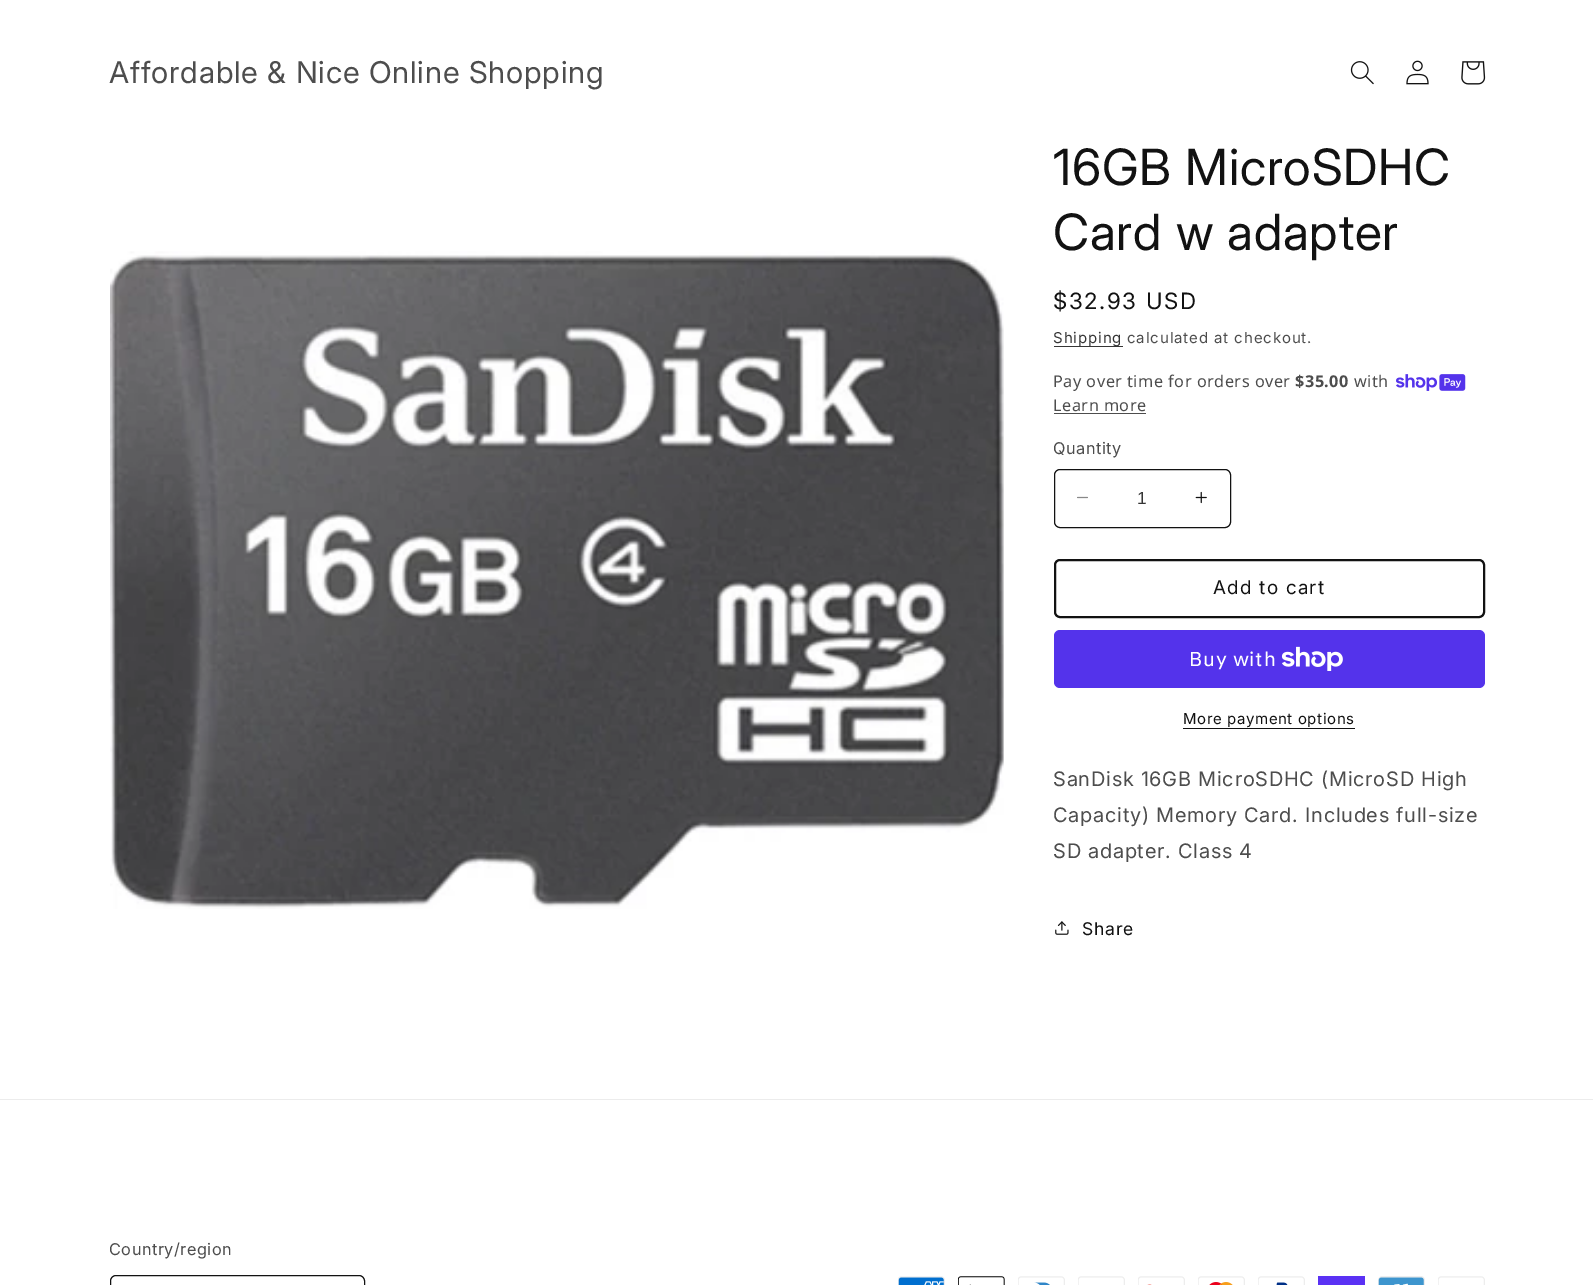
%!PS
<< /PageSize [1593 1285] >> setpagedevice
/rgb { 3 { 255 div 3 1 roll } repeat setrgbcolor } def
/font { [ exch dup neg 0 0 3 -1 roll 0 0 ] selectfont } def
/roundrect { 5 dict begin { /r /h /w /y /x } { exch def } forall
  x r add y moveto x w add y 2 copy h add r arct x w add y h add x 1 index r arct
  x y h add x y r arct x y 2 copy exch w add exch r arct closepath end } def
/picture { 5 dict begin { /h /w /y /x /name } { exch def } forall
  gsave x y translate w h scale
  w h 8 [w 0 0 h 0 0] name (r) file false 3 colorimage grestore end } def
0 1285 translate 1 -1 scale
4 setmiterlimit
255 255 255 rgb
0 0 1593 1285 rectfill
(img/1.rgb) 1350 61 24 24 picture
(img/2.rgb) 1406 60 23 25 picture
(img/3.rgb) 1461 61 25 24 picture
(img/4.rgb) 110 251 894 658 picture
54 54 54 rgb
1054 346 69 1 rectfill
(img/5.rgb) 1396 374 70 17 picture
77 77 77 rgb
1054 413 92 1 rectfill
(img/6.rgb) 1077 496 11 3 picture
(img/7.rgb) 1195 491 12 13 picture
18 18 18 rgb
1054.5 469.5 176 58 5.5 roundrect stroke
2 setlinewidth
1055 560 429 57 5 roundrect stroke
84 51 235 rgb
1054 630 431 58 6 roundrect fill
(img/8.rgb) 1281 646 62 25 picture
18 18 18 rgb
1183 728 172 1 rectfill
(img/9.rgb) 1055 921 14 14 picture
236 236 236 rgb
0 1099 1593 1 rectfill
18 18 18 rgb
1 setlinewidth
110.5 1275.5 254 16 5.5 roundrect stroke
(img/10.rgb) 898 1276 47 9 picture
(img/11.rgb) 958 1276 47 9 picture
(img/12.rgb) 1018 1276 47 9 picture
(img/13.rgb) 1078 1276 47 9 picture
(img/14.rgb) 1138 1276 47 9 picture
(img/15.rgb) 1198 1276 47 9 picture
(img/16.rgb) 1258 1276 47 9 picture
90 49 244 rgb
1318 1276 47 9 rectfill
(img/17.rgb) 1378 1276 47 9 picture
(img/13.rgb) 1438 1276 47 9 picture
/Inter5-Regular 30 font
77 77 77 rgb
109 83 moveto 0.75 0 (Affordable & Nice Online Shopping) ashow
/Inter-Regular 50 font
18 18 18 rgb
1053 185 moveto 0.75 0 (16GB MicroSDHC) ashow
1053 250 moveto 0.75 0 (Card w adapter) ashow
/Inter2-Regular 22.5 font
1053 309 moveto 1.6 0 ($32.93 USD) ashow
/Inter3-Regular 15 font
53 53 53 rgb
1053 343 moveto 0.9 0 (Shipping) ashow
77 77 77 rgb
1127 343 moveto 0.9 0 (calculated at checkout.) ashow
/NotoSans-Regular 16.25 font
1053 387 moveto 0.5 0 (Pay over time for orders over) ashow
/NotoSans-Bold 16.25 font
1295 387 moveto 0.5 0 ($35.00) ashow
/NotoSans-Regular 16.25 font
1354 387 moveto 0.5 0 (with) ashow
1053 411 moveto 0.5 0 (Learn more) ashow
/Inter3-Regular 16.25 font
1053 454 moveto 0.5 0 (Quantity) ashow
/LiberationSans-Regular 17.5 font
53 53 53 rgb
1137 504 moveto (1) show
/Inter3-Regular 18.75 font
18 18 18 rgb
1213 594 moveto 1.25 0 (Add to cart) ashow
/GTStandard-Regular 20 font
255 255 255 rgb
1189 666 moveto 0.75 0 (Buy with) ashow
/Inter3-Regular 15 font
18 18 18 rgb
1183 724 moveto 0.6 0 (More payment options) ashow
/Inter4-Regular 20 font
77 77 77 rgb
1053 786 moveto 0.75 0 (SanDisk 16GB MicroSDHC \(MicroSD High) ashow
1053 822 moveto 0.75 0 (Capacity\) Memory Card. Includes full-size) ashow
1053 858 moveto 0.75 0 (SD adapter. Class 4) ashow
/Inter3-Regular 17.5 font
18 18 18 rgb
1082 935 moveto 0.75 0 (Share) ashow
/Inter3-Regular 16.25 font
77 77 77 rgb
109 1255 moveto 0.5 0 (Country/region) ashow
showpage
